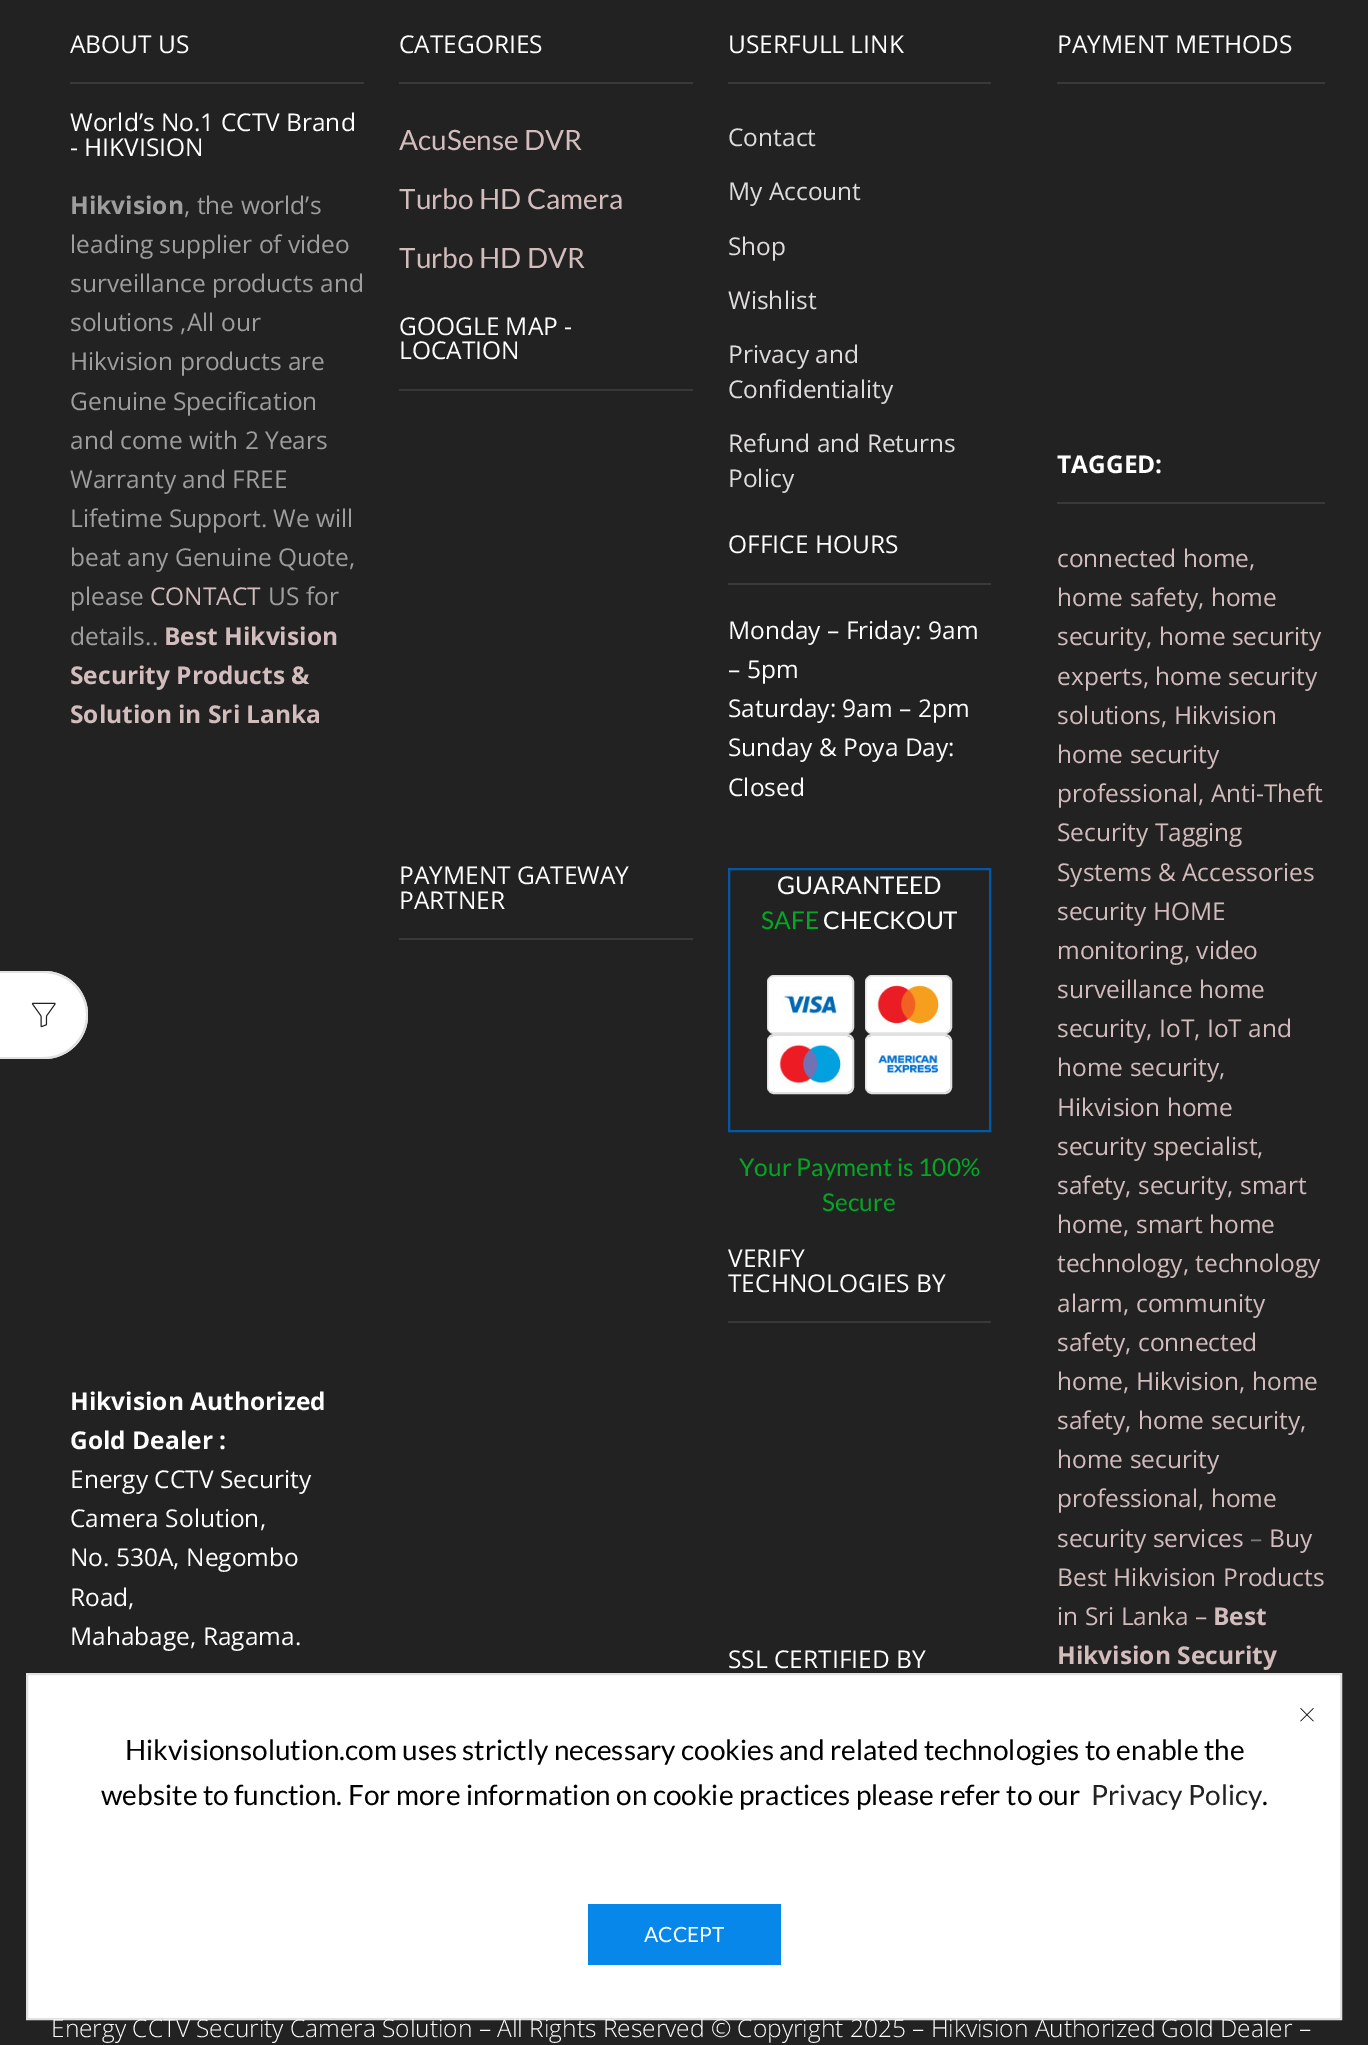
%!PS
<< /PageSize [1368 2045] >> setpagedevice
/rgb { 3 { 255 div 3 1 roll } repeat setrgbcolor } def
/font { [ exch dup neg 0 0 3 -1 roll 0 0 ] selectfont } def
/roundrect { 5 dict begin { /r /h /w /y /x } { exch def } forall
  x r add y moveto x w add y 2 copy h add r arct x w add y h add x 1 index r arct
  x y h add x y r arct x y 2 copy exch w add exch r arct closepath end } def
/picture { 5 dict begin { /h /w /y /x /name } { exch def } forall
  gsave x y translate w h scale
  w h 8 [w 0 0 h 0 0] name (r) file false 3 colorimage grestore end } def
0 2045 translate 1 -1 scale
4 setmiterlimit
34 34 34 rgb
0 0 1368 2045 rectfill
255 255 255 rgb
0 971 moveto 44 971 lineto 68.5 971 88 990.5 88 1015 curveto 88 1039.5 68.5 1059 44 1059 curveto 0 1059 lineto closepath fill
225 225 225 rgb
0 971 moveto 44 971 lineto 68 971 88 991 88 1015 curveto 88 1039 68 1059 44 1059 curveto 0 1059 lineto closepath 0 973 moveto 44 973 lineto 67 973 86 992 86 1015 curveto 86 1038 67 1057 44 1057 curveto 0 1057 lineto closepath eofill
(img/1.rgb) 31 1002 25 26 picture
[
  [70 82 294 2 57 57 57]
  [399 82 294 2 57 57 57]
  [399 389 294 2 57 57 57]
  [399 938 294 2 57 57 57]
  [728 82 263 2 57 57 57]
  [728 583 263 2 57 57 57]
] { aload pop rgb rectfill } forall
3 88 167 rgb
2 setlinewidth
729 869 261 262 rectstroke
225 225 225 rgb
768 976 85 57 6 roundrect stroke
(img/2.rgb) 768 976 84 57 picture
866 976 85 57 6 roundrect stroke
(img/3.rgb) 866 976 84 57 picture
768 1035 85 58 6 roundrect stroke
(img/4.rgb) 768 1036 84 56 picture
866 1035 85 58 6 roundrect stroke
(img/5.rgb) 866 1036 84 56 picture
[
  [728 1321 263 2 57 57 57]
  [1057 82 268 2 57 57 57]
  [1057 502 268 2 57 57 57]
] { aload pop rgb rectfill } forall
255 255 255 rgb
27 1674 moveto 1341 1674 lineto 1341 2019 lineto 27 2019 lineto closepath gsave fill grestore
225 225 225 rgb
stroke
(img/6.rgb) 1300 1708 14 14 picture
7 135 234 rgb
588 1904 193 61 rectfill
/OpenSans-Regular 24.5 font
255 255 255 rgb
[
  [(ABOUT US) 70 53]
  [(World’s No.1 CCTV Brand) 70 131]
  [(- HIKVISION) 70 156]
] { aload pop moveto show } forall
/OpenSans-Bold 24.5 font
158 158 158 rgb
70 214 moveto (Hikvision) show
/OpenSans-Regular 24.5 font
[
  [(, the world’s) 184 214]
  [(leading supplier of video) 70 253]
  [(surveillance products and) 70 292]
  [(solutions ,All our) 70 331]
  [(Hikvision products are) 70 370]
  [(Genuine Specification) 70 410]
  [(and come with 2 Years) 70 449]
  [(Warranty and FREE) 70 488]
  [(Lifetime Support. We will) 70 527]
  [(beat any Genuine Quote,) 70 566]
  [(please) 70 605]
] { aload pop moveto show } forall
211 188 188 rgb
150 605 moveto (CONTACT) show
158 158 158 rgb
268 605 moveto (US for) show
70 645 moveto (details..) show
/OpenSans-Bold 24.5 font
211 188 188 rgb
[
  [(Best Hikvision) 164 645]
  [(Security Products &) 70 684]
  [(Solution in Sri Lanka) 70 723]
] { aload pop moveto show } forall
255 255 255 rgb
70 1410 moveto (Hikvision Authorized) show
70 1449 moveto (Gold Dealer :) show
/OpenSans-Regular 24.5 font
[
  [(Energy CCTV Security) 70 1488]
  [(Camera Solution,) 70 1527]
  [(No. 530A, Negombo) 70 1566]
  [(Road,) 70 1606]
  [(Mahabage, Ragama.) 70 1645]
  [(CATEGORIES) 399 53]
] { aload pop moveto show } forall
/Lato-Regular 28 font
211 188 188 rgb
[
  [(AcuSense DVR) 399 150]
  [(Turbo HD Camera) 399 209]
  [(Turbo HD DVR) 399 268]
] { aload pop moveto show } forall
/OpenSans-Regular 24.5 font
255 255 255 rgb
[
  [(GOOGLE MAP -) 399 335]
  [(LOCATION) 399 359]
  [(PAYMENT GATEWAY) 399 884]
  [(PARTNER) 399 909]
  [(USERFULL LINK) 728 53]
] { aload pop moveto show } forall
223 220 220 rgb
[
  [(Contact) 728 146]
  [(My Account) 728 200]
  [(Shop) 728 255]
  [(Wishlist) 728 309]
  [(Privacy and) 728 363]
  [(Confidentiality) 728 398]
  [(Refund and Returns) 728 452]
  [(Policy) 728 487]
] { aload pop moveto show } forall
255 255 255 rgb
[
  [(OFFICE HOURS) 728 553]
  [(Monday – Friday: 9am) 728 639]
  [(– 5pm) 728 678]
  [(Saturday: 9am – 2pm) 728 717]
  [(Sunday & Poya Day:) 728 756]
  [(Closed) 728 796]
] { aload pop moveto show } forall
/Lato-Regular 24.5 font
777 894 moveto (GUARANTEED) show
3 167 37 rgb
761 929 moveto (SAFE) show
255 255 255 rgb
823 929 moveto (CHECKOUT) show
3 167 37 rgb
739 1176 moveto (Your Payment is 100%) show
822 1211 moveto (Secure) show
/OpenSans-Regular 24.5 font
255 255 255 rgb
[
  [(VERIFY) 728 1267]
  [(TECHNOLOGIES BY) 728 1292]
  [(SSL CERTIFIED BY) 728 1668]
  [(PAYMENT METHODS) 1057 53]
] { aload pop moveto show } forall
/OpenSans-Bold 24.5 font
1057 473 moveto (TAGGED:) show
/OpenSans-Regular 24.5 font
211 188 188 rgb
[
  [(connected home,) 1057 567]
  [(home safety, home) 1057 606]
  [(security, home security) 1057 645]
  [(experts, home security) 1057 685]
  [(solutions, Hikvision) 1057 724]
  [(home security) 1057 763]
  [(professional, Anti-Theft) 1057 802]
  [(Security Tagging) 1057 841]
  [(Systems & Accessories) 1057 881]
  [(security HOME) 1057 920]
  [(monitoring, video) 1057 959]
  [(surveillance home) 1057 998]
  [(security, IoT, IoT and) 1057 1037]
  [(home security,) 1057 1076]
  [(Hikvision home) 1057 1116]
  [(security specialist,) 1057 1155]
  [(safety, security, smart) 1057 1194]
  [(home, smart home) 1057 1233]
  [(technology, technology) 1057 1272]
  [(alarm, community) 1057 1312]
  [(safety, connected) 1057 1351]
  [(home, Hikvision, home) 1057 1390]
  [(safety, home security,) 1057 1429]
  [(home security) 1057 1468]
  [(professional, home) 1057 1507]
  [(security services) 1057 1547]
] { aload pop moveto show } forall
122 122 122 rgb
1250 1547 moveto (–) show
211 188 188 rgb
[
  [(Buy) 1269 1547]
  [(Best Hikvision Products) 1057 1586]
  [(in Sri Lanka –) 1057 1625]
] { aload pop moveto show } forall
/OpenSans-Bold 24.5 font
1213 1625 moveto (Best) show
1057 1664 moveto (Hikvision Security) show
/OpenSans-Light 24.5 font
255 255 255 rgb
51 2037 moveto (Energy CCTV Security Camera Solution – All Rights Reserved © Copyright 2025 – Hikvision Authorized Gold Dealer –) show
/Lato-Regular 28 font
0 0 0 rgb
125 1760 moveto (Hikvisionsolution.com uses strictly necessary cookies and related technologies to enable the) show
101 1805 moveto (website to function. For more information on cookie practices please refer to our) show
34 34 34 rgb
1091 1805 moveto (Privacy Policy) show
0 0 0 rgb
1262 1805 moveto (.) show
/Lato-Regular 21 font
255 255 255 rgb
644 1942 moveto (ACCEPT) show
showpage
